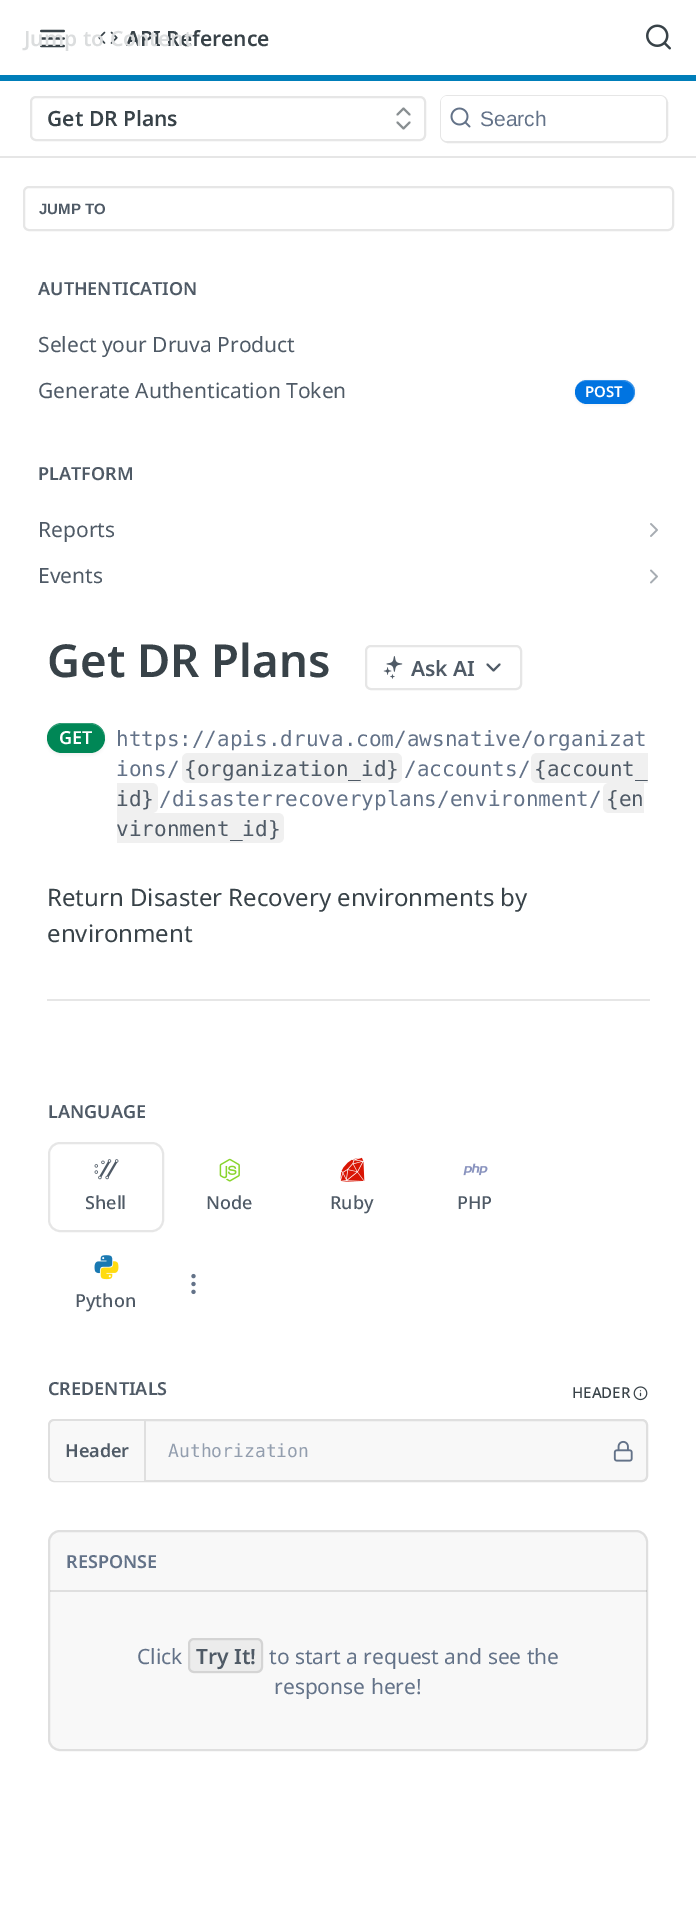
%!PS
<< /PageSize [696 1924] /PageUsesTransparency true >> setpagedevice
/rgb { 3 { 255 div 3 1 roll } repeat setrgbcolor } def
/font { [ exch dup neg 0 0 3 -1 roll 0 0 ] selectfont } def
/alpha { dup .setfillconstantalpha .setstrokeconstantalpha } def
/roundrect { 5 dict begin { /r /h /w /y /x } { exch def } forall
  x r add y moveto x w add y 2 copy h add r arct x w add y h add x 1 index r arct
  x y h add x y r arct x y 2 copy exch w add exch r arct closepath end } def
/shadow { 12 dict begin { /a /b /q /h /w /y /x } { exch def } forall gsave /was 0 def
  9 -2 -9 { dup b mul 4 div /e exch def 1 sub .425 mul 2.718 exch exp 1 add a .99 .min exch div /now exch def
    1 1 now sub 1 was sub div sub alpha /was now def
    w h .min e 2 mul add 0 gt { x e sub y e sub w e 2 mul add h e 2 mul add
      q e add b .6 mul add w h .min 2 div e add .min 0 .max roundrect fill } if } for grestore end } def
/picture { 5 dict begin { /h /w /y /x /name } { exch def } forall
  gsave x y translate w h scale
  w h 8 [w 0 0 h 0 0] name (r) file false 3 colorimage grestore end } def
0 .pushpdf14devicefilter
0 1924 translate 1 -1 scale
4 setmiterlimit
255 255 255 rgb
0 0 696 1924 rectfill
230 230 230 rgb
0 156 696 2 rectfill
0 126 185 rgb
0 75 696 6 rectfill
(img/1.rgb) 40 29 25 19 picture
(img/2.rgb) 98 31 20 13 picture
(img/3.rgb) 646 24 25 26 picture
230 230 230 rgb
2 setlinewidth
31 97 394 43 5 roundrect stroke
136 142 145 rgb
1 setlinecap
1 setlinejoin
397.5 122.5 moveto 403.5 128.5 lineto 409.5 122.5 lineto 409.5 114.5 moveto 403.5 108.5 lineto 397.5 114.5 lineto stroke
230 230 230 rgb
0 setlinecap
0 setlinejoin
441 96 226 46 7 roundrect stroke
255 255 255 rgb
441 96 225 45 6 roundrect fill
(img/4.rgb) 450 107 21 21 picture
230 230 230 rgb
24 187 649 43 5 roundrect stroke
0 0 0 rgb
575 381 60 24 12 1.5 0.05 shadow
0 116 225 rgb
575 380 60 24 12 roundrect fill
0.2 alpha
255 255 255 rgb
586 381 moveto 622 381 lineto 629 381 634 386 634 393 curveto 634 396 633 398 632 400 curveto 634 398 635 395 635 392 curveto 635 385 630 380 623 380 curveto 587 380 lineto 583 380 580 382 578 384 curveto 580 382 583 381 586 381 curveto closepath fill
1 alpha
(img/5.rgb) 650 523 8 14 picture
(img/6.rgb) 650 569 8 15 picture
230 230 230 rgb
47 999 603 2 rectfill
366 646 155 43 5 roundrect stroke
(img/7.rgb) 383 656 20 23 picture
79 90 102 rgb
1 setlinecap
1 setlinejoin
487.5 664.5 moveto 493.5 670.5 lineto 499.5 664.5 lineto stroke
0 0 0 rgb
47 725 58 30 15 1.5 0.05 shadow
0 135 86 rgb
47 723 58 30 15 roundrect fill
0.2 alpha
255 255 255 rgb
62 724 moveto 90 724 lineto 98 724 104 730 105 739 curveto 105 736 104 732 102 730 curveto 97 721 85 723 76 723 curveto 67 723 54 721 49 731 curveto 52 727 57 724 62 724 curveto closepath fill
1 alpha
240 240 240 rgb
182 753 220 30 6 roundrect fill
537 753 moveto 648 753 lineto 648 783 lineto 537 783 lineto 533.5 783 531 780.5 531 777 curveto 531 759 lineto 531 755.5 533.5 753 537 753 curveto closepath fill
117 783 moveto 152 783 lineto 155.5 783 158 785.5 158 789 curveto 158 807 lineto 158 810.5 155.5 813 152 813 curveto 117 813 lineto closepath fill
609 783 moveto 644 783 lineto 644 813 lineto 609 813 lineto 605.5 813 603 810.5 603 807 curveto 603 789 lineto 603 785.5 605.5 783 609 783 curveto closepath fill
117 813 moveto 278 813 lineto 281.5 813 284 815.5 284 819 curveto 284 837 lineto 284 840.5 281.5 843 278 843 curveto 117 843 lineto closepath fill
230 230 230 rgb
0 setlinecap
0 setlinejoin
49 1143 114 88 11 roundrect stroke
(img/8.rgb) 94 1159 25 21 picture
(img/9.rgb) 219 1158 21 24 picture
(img/10.rgb) 340 1157 25 25 picture
(img/11.rgb) 463 1163 25 13 picture
(img/12.rgb) 191 1273 5 22 picture
(img/13.rgb) 94 1255 19 19 picture
(img/14.rgb) 100 1261 19 19 picture
(img/15.rgb) 633 1386 15 15 picture
248 248 248 rgb
49 1420 598 61 5 roundrect gsave fill grestore
223 223 223 rgb
stroke
248 248 248 rgb
56 1421 moveto 146 1421 lineto 146 1481 lineto 56 1481 lineto 52.5 1481 50 1478.5 50 1475 curveto 50 1427 lineto 50 1423.5 52.5 1421 56 1421 curveto closepath fill
223 223 223 rgb
144 1421 2 60 rectfill
(img/16.rgb) 613 1440 20 22 picture
248 248 248 rgb
48 1530 600 221 12 roundrect fill
0.1 alpha
0 0 0 rgb
49 1531 598 219 11 roundrect stroke
50 1590 597 2 rectfill
1 alpha
236 236 236 rgb
188 1638 75 35 6 roundrect fill
0.1 alpha
0 0 0 rgb
189 1639 73 33 5 roundrect stroke
/NotoSans-SemiBold 21 font
1 alpha
56 66 72 rgb
126 46 moveto (API Reference) show
219 221 222 rgb
24 46 moveto (Jump to Content) show
56 66 72 rgb
47 126 moveto (Get DR Plans) show
/LiberationSans-Regular 21 font
99 114 136 rgb
480 126 moveto (Search) show
/LiberationSans-Bold 15 font
79 90 102 rgb
39 214 moveto (JUMP TO) show
/NotoSans-SemiBold 18 font
38 295 moveto (AUTHENTICATION) show
/NotoSans-Regular 21 font
38 352 moveto (Select your Druva Product) show
38 398 moveto (Generate Authentication Token) show
/NotoSans-SemiBold 15 font
255 255 255 rgb
585 397 moveto (POST) show
/NotoSans-SemiBold 18 font
79 90 102 rgb
38 480 moveto (PLATFORM) show
/NotoSans-Regular 21 font
38 537 moveto (Reports) show
38 583 moveto (Events) show
/NotoSans-SemiBold 45.5 font
56 66 72 rgb
47 677 moveto (Get DR Plans) show
/NotoSans-SemiBold 21 font
79 90 102 rgb
411 676 moveto (Ask AI) show
/NotoSans-SemiBold 18 font
255 255 255 rgb
59 744 moveto (GET) show
/DejaVuSansMono-Regular 21 font
99 114 136 rgb
116 746 moveto (https://apis.druva.com/awsnative/organizat) show
116 776 moveto (ions/) show
79 90 102 rgb
184 776 moveto ({organization_id}) show
99 114 136 rgb
404 776 moveto (/accounts/) show
79 90 102 rgb
534 776 moveto ({account_) show
116 806 moveto (id}) show
99 114 136 rgb
159 806 moveto (/disasterrecoveryplans/environment/) show
79 90 102 rgb
606 806 moveto ({en) show
116 836 moveto (vironment_id}) show
/NotoSans-Regular 24 font
56 66 72 rgb
47 906 moveto (Return Disaster Recovery environments by) show
47 942 moveto (environment) show
/NotoSans-SemiBold 18 font
79 90 102 rgb
48 1118 moveto (LANGUAGE) show
/NotoSans-Medium 18 font
[
  [(Shell) 85 1209]
  [(Node) 206 1209]
  [(Ruby) 330 1209]
  [(PHP) 457 1209]
  [(Python) 75 1307]
] { aload pop moveto show } forall
/NotoSans-SemiBold 18 font
48 1395 moveto (CREDENTIALS) show
/NotoSans-Medium 15 font
56 66 72 rgb
572 1398 moveto (HEADER) show
/NotoSans-SemiBold 18 font
79 90 102 rgb
65 1457 moveto (Header) show
/DejaVuSansMono-Regular 18 font
147 158 174 rgb
168 1457 moveto (Authorization) show
/NotoSans-SemiBold 18 font
99 114 136 rgb
66 1568 moveto (RESPONSE) show
/NotoSans-Regular 21 font
137 1664 moveto (Click) show
/NotoSans-SemiBold 21 font
79 90 102 rgb
196 1664 moveto (Try It!) show
/NotoSans-Regular 21 font
99 114 136 rgb
269 1664 moveto (to start a request and see the) show
274 1694 moveto (response here!) show
.poppdf14devicefilter showpage
